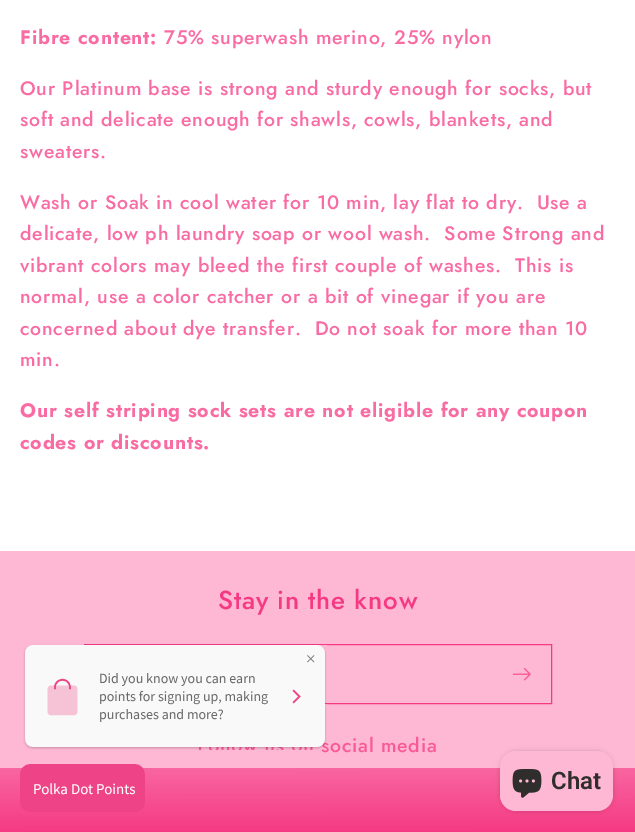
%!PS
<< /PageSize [635 832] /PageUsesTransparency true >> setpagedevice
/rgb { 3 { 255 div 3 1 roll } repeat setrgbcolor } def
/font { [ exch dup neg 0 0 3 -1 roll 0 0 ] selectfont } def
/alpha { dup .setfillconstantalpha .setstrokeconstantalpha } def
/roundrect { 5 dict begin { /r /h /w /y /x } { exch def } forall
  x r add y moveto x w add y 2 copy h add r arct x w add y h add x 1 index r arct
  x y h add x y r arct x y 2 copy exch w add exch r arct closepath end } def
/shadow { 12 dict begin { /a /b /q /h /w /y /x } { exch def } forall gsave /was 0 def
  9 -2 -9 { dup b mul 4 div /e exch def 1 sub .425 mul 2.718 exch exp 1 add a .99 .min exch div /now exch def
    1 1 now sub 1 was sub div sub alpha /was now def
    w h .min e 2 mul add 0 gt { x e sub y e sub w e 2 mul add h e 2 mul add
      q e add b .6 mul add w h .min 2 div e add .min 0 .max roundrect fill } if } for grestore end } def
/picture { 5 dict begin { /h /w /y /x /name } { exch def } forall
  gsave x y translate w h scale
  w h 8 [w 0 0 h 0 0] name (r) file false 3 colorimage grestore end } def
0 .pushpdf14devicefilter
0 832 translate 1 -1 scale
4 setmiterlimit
255 255 255 rgb
0 0 635 832 rectfill
255 184 212 rgb
0 551 635 217 rectfill
245 58 132 rgb
84.5 644.5 467 59 rectstroke
(img/1.rgb) 512 668 19 13 picture
gsave 0 768 moveto 635 768 lineto 635 832 lineto 0 832 lineto closepath clip newpath
<< /ShadingType 2 /ColorSpace /DeviceRGB /Coords [317 0 318 832] /Extend [true true] /Function << /FunctionType 3 /Domain [0 1] /Functions [<< /FunctionType 2 /Domain [0 1] /C0 [1 0.835 0.875] /C1 [1 0.835 0.875] /N 1 >> << /FunctionType 2 /Domain [0 1] /C0 [1 0.835 0.875] /C1 [1 0.722 0.831] /N 1 >> << /FunctionType 2 /Domain [0 1] /C0 [1 0.722 0.831] /C1 [0.961 0.227 0.518] /N 1 >>] /Bounds [0.21 0.78] /Encode [0 1 0 1 0 1] >> >> shfill grestore
(img/3.rgb) 20 764 125 48 picture
0 0 0 rgb
500 751 113 60 16 2.5 0.15 shadow
255 184 212 rgb
500 751 113 60 16 roundrect fill
(img/4.rgb) 512 769 30 29 picture
/Jost-Bold 19.5 font
248 107 163 rgb
20 44 moveto 0.78 0 (Fibre content:) ashow
/Jost-Medium 19.5 font
164 44 moveto 0.78 0 (75% superwash merino, 25% nylon) ashow
20 95 moveto 0.78 0 (Our Platinum base is strong and sturdy enough for socks, but) ashow
20 126 moveto 0.78 0 (soft and delicate enough for shawls, cowls, blankets, and) ashow
20 158 moveto 0.78 0 (sweaters.) ashow
20 209 moveto 0.78 0 (Wash or Soak in cool water for 10 min, lay flat to dry.  Use a) ashow
20 240 moveto 0.78 0 (delicate, low ph laundry soap or wool wash.  Some Strong and) ashow
20 272 moveto 0.78 0 (vibrant colors may bleed the first couple of washes.  This is) ashow
20 303 moveto 0.78 0 (normal, use a color catcher or a bit of vinegar if you are) ashow
20 335 moveto 0.78 0 (concerned about dye transfer.  Do not soak for more than 10) ashow
20 366 moveto 0.78 0 (min.) ashow
/Jost-Bold 19.5 font
20 417 moveto 0.78 0 (Our self striping sock sets are not eligible for any coupon) ashow
20 449 moveto 0.78 0 (codes or discounts.) ashow
/Jost-Medium 26 font
245 58 132 rgb
218 609 moveto 0.78 0 (Stay in the know) ashow
/Jost-Medium 19.5 font
248 90 152 rgb
321 752 moveto 0.78 0 (social media) ashow
(img/2.rgb) 23 644 304 106 picture
/Roboto-SemiBold 24 font
48 45 45 rgb
551 789 moveto (Chat) show
.poppdf14devicefilter showpage
